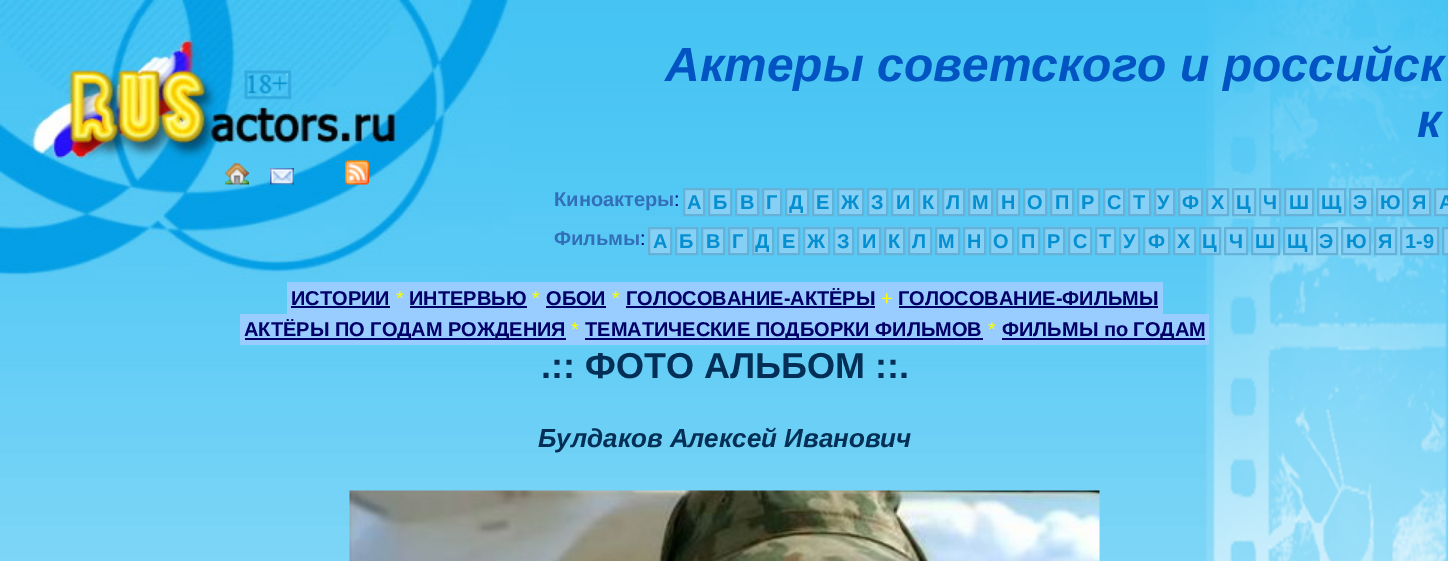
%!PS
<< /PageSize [1448 561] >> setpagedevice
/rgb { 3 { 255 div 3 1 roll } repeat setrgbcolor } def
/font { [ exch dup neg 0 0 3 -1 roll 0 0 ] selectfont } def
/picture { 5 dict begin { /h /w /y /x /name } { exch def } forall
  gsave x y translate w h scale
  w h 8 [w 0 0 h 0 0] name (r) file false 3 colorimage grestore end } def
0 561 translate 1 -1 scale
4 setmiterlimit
255 255 255 rgb
0 0 1448 561 rectfill
(img/1.rgb) 0 0 1448 561 picture
(img/2.rgb) 1206 0 241 561 picture
(img/3.rgb) 0 0 509 276 picture
(img/4.rgb) 225 163 24 22 picture
(img/5.rgb) 270 168 24 17 picture
(img/6.rgb) 345 160 24 25 picture
134 207 245 rgb
684 189 moveto 704 189 lineto 704 215 lineto 684 215 lineto closepath gsave fill grestore
102 177 216 rgb
2 setlinewidth
stroke
134 207 245 rgb
709 189 moveto 731 189 lineto 731 215 lineto 709 215 lineto closepath gsave fill grestore
102 177 216 rgb
stroke
134 207 245 rgb
736 189 moveto 758 189 lineto 758 215 lineto 736 215 lineto closepath gsave fill grestore
102 177 216 rgb
stroke
134 207 245 rgb
763 189 moveto 781 189 lineto 781 215 lineto 763 215 lineto closepath gsave fill grestore
102 177 216 rgb
stroke
134 207 245 rgb
786 189 moveto 808 189 lineto 808 215 lineto 786 215 lineto closepath gsave fill grestore
102 177 216 rgb
stroke
134 207 245 rgb
813 189 moveto 833 189 lineto 833 215 lineto 813 215 lineto closepath gsave fill grestore
102 177 216 rgb
stroke
134 207 245 rgb
838 189 moveto 863 189 lineto 863 215 lineto 838 215 lineto closepath gsave fill grestore
102 177 216 rgb
stroke
134 207 245 rgb
868 189 moveto 887 189 lineto 887 215 lineto 868 215 lineto closepath gsave fill grestore
102 177 216 rgb
stroke
134 207 245 rgb
892 189 moveto 914 189 lineto 914 215 lineto 892 215 lineto closepath gsave fill grestore
102 177 216 rgb
stroke
134 207 245 rgb
919 189 moveto 938 189 lineto 938 215 lineto 919 215 lineto closepath gsave fill grestore
102 177 216 rgb
stroke
134 207 245 rgb
943 189 moveto 964 189 lineto 964 215 lineto 943 215 lineto closepath gsave fill grestore
102 177 216 rgb
stroke
134 207 245 rgb
969 189 moveto 992 189 lineto 992 215 lineto 969 215 lineto closepath gsave fill grestore
102 177 216 rgb
stroke
134 207 245 rgb
997 189 moveto 1019 189 lineto 1019 215 lineto 997 215 lineto closepath gsave fill grestore
102 177 216 rgb
stroke
134 207 245 rgb
1024 189 moveto 1046 189 lineto 1046 215 lineto 1024 215 lineto closepath gsave fill grestore
102 177 216 rgb
stroke
134 207 245 rgb
1051 189 moveto 1073 189 lineto 1073 215 lineto 1051 215 lineto closepath gsave fill grestore
102 177 216 rgb
stroke
134 207 245 rgb
1078 189 moveto 1099 189 lineto 1099 215 lineto 1078 215 lineto closepath gsave fill grestore
102 177 216 rgb
stroke
134 207 245 rgb
1104 189 moveto 1124 189 lineto 1124 215 lineto 1104 215 lineto closepath gsave fill grestore
102 177 216 rgb
stroke
134 207 245 rgb
1129 189 moveto 1150 189 lineto 1150 215 lineto 1129 215 lineto closepath gsave fill grestore
102 177 216 rgb
stroke
134 207 245 rgb
1155 189 moveto 1174 189 lineto 1174 215 lineto 1155 215 lineto closepath gsave fill grestore
102 177 216 rgb
stroke
134 207 245 rgb
1179 189 moveto 1202 189 lineto 1202 215 lineto 1179 215 lineto closepath gsave fill grestore
102 177 216 rgb
stroke
134 207 245 rgb
1207 189 moveto 1228 189 lineto 1228 215 lineto 1207 215 lineto closepath gsave fill grestore
102 177 216 rgb
stroke
134 207 245 rgb
1233 189 moveto 1255 189 lineto 1255 215 lineto 1233 215 lineto closepath gsave fill grestore
102 177 216 rgb
stroke
134 207 245 rgb
1260 189 moveto 1280 189 lineto 1280 215 lineto 1260 215 lineto closepath gsave fill grestore
102 177 216 rgb
stroke
134 207 245 rgb
1285 189 moveto 1313 189 lineto 1313 215 lineto 1285 215 lineto closepath gsave fill grestore
102 177 216 rgb
stroke
134 207 245 rgb
1318 189 moveto 1345 189 lineto 1345 215 lineto 1318 215 lineto closepath gsave fill grestore
102 177 216 rgb
stroke
134 207 245 rgb
1350 189 moveto 1372 189 lineto 1372 215 lineto 1350 215 lineto closepath gsave fill grestore
102 177 216 rgb
stroke
134 207 245 rgb
1377 189 moveto 1403 189 lineto 1403 215 lineto 1377 215 lineto closepath gsave fill grestore
102 177 216 rgb
stroke
134 207 245 rgb
1408 189 moveto 1430 189 lineto 1430 215 lineto 1408 215 lineto closepath gsave fill grestore
102 177 216 rgb
stroke
134 207 245 rgb
1435 189 moveto 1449 189 lineto 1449 215 lineto 1435 215 lineto closepath gsave fill grestore
102 177 216 rgb
stroke
134 207 245 rgb
649 228 moveto 671 228 lineto 671 254 lineto 649 254 lineto closepath gsave fill grestore
102 177 216 rgb
stroke
134 207 245 rgb
676 228 moveto 697 228 lineto 697 254 lineto 676 254 lineto closepath gsave fill grestore
102 177 216 rgb
stroke
134 207 245 rgb
702 228 moveto 724 228 lineto 724 254 lineto 702 254 lineto closepath gsave fill grestore
102 177 216 rgb
stroke
134 207 245 rgb
729 228 moveto 748 228 lineto 748 254 lineto 729 254 lineto closepath gsave fill grestore
102 177 216 rgb
stroke
134 207 245 rgb
753 228 moveto 773 228 lineto 773 254 lineto 753 254 lineto closepath gsave fill grestore
102 177 216 rgb
stroke
134 207 245 rgb
778 228 moveto 799 228 lineto 799 254 lineto 778 254 lineto closepath gsave fill grestore
102 177 216 rgb
stroke
134 207 245 rgb
804 228 moveto 829 228 lineto 829 254 lineto 804 254 lineto closepath gsave fill grestore
102 177 216 rgb
stroke
134 207 245 rgb
834 228 moveto 853 228 lineto 853 254 lineto 834 254 lineto closepath gsave fill grestore
102 177 216 rgb
stroke
134 207 245 rgb
858 228 moveto 880 228 lineto 880 254 lineto 858 254 lineto closepath gsave fill grestore
102 177 216 rgb
stroke
134 207 245 rgb
885 228 moveto 904 228 lineto 904 254 lineto 885 254 lineto closepath gsave fill grestore
102 177 216 rgb
stroke
134 207 245 rgb
909 228 moveto 931 228 lineto 931 254 lineto 909 254 lineto closepath gsave fill grestore
102 177 216 rgb
stroke
134 207 245 rgb
936 228 moveto 959 228 lineto 959 254 lineto 936 254 lineto closepath gsave fill grestore
102 177 216 rgb
stroke
134 207 245 rgb
964 228 moveto 985 228 lineto 985 254 lineto 964 254 lineto closepath gsave fill grestore
102 177 216 rgb
stroke
134 207 245 rgb
990 228 moveto 1013 228 lineto 1013 254 lineto 990 254 lineto closepath gsave fill grestore
102 177 216 rgb
stroke
134 207 245 rgb
1018 228 moveto 1039 228 lineto 1039 254 lineto 1018 254 lineto closepath gsave fill grestore
102 177 216 rgb
stroke
134 207 245 rgb
1044 228 moveto 1064 228 lineto 1064 254 lineto 1044 254 lineto closepath gsave fill grestore
102 177 216 rgb
stroke
134 207 245 rgb
1069 228 moveto 1091 228 lineto 1091 254 lineto 1069 254 lineto closepath gsave fill grestore
102 177 216 rgb
stroke
134 207 245 rgb
1096 228 moveto 1115 228 lineto 1115 254 lineto 1096 254 lineto closepath gsave fill grestore
102 177 216 rgb
stroke
134 207 245 rgb
1120 228 moveto 1139 228 lineto 1139 254 lineto 1120 254 lineto closepath gsave fill grestore
102 177 216 rgb
stroke
134 207 245 rgb
1144 228 moveto 1169 228 lineto 1169 254 lineto 1144 254 lineto closepath gsave fill grestore
102 177 216 rgb
stroke
134 207 245 rgb
1174 228 moveto 1195 228 lineto 1195 254 lineto 1174 254 lineto closepath gsave fill grestore
102 177 216 rgb
stroke
134 207 245 rgb
1200 228 moveto 1220 228 lineto 1220 254 lineto 1200 254 lineto closepath gsave fill grestore
102 177 216 rgb
stroke
134 207 245 rgb
1225 228 moveto 1247 228 lineto 1247 254 lineto 1225 254 lineto closepath gsave fill grestore
102 177 216 rgb
stroke
134 207 245 rgb
1252 228 moveto 1279 228 lineto 1279 254 lineto 1252 254 lineto closepath gsave fill grestore
102 177 216 rgb
stroke
134 207 245 rgb
1284 228 moveto 1312 228 lineto 1312 254 lineto 1284 254 lineto closepath gsave fill grestore
102 177 216 rgb
stroke
134 207 245 rgb
1317 228 moveto 1337 228 lineto 1337 254 lineto 1317 254 lineto closepath gsave fill grestore
102 177 216 rgb
stroke
134 207 245 rgb
1342 228 moveto 1370 228 lineto 1370 254 lineto 1342 254 lineto closepath gsave fill grestore
102 177 216 rgb
stroke
134 207 245 rgb
1375 228 moveto 1396 228 lineto 1396 254 lineto 1375 254 lineto closepath gsave fill grestore
102 177 216 rgb
stroke
134 207 245 rgb
1401 228 moveto 1438 228 lineto 1438 254 lineto 1401 254 lineto closepath gsave fill grestore
102 177 216 rgb
stroke
134 207 245 rgb
1443 228 moveto 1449 228 lineto 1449 254 lineto 1443 254 lineto closepath gsave fill grestore
102 177 216 rgb
stroke
[
  [287 282 876 32 153 204 255]
  [291 306 99 2 0 0 102]
  [410 306 117 2 0 0 102]
  [546 306 60 2 0 0 102]
  [626 306 249 2 0 0 102]
  [899 306 259 2 0 0 102]
  [240 314 969 31 153 204 255]
  [245 338 321 2 0 0 102]
  [585 338 398 2 0 0 102]
  [1002 338 203 2 0 0 102]
] { aload pop rgb rectfill } forall
(img/7.rgb) 349 490 751 71 picture
/LiberationSans-BoldItalic 48 font
2 84 195 rgb
665 81 moveto (Актеры советского и российск) show
1417 137 moveto (к) show
/LiberationSans-Bold 20 font
50 111 184 rgb
554 206 moveto (Киноактеры) show
/LiberationSans-Regular 20 font
0 0 128 rgb
674 206 moveto (:) show
/LiberationSans-Bold 20 font
4 144 208 rgb
[
  [(А) 687 209]
  [(Б) 713 209]
  [(В) 740 209]
  [(Г) 766 209]
  [(Д) 789 209]
  [(Е) 816 209]
  [(Ж) 841 209]
  [(З) 871 209]
  [(И) 896 209]
  [(К) 922 209]
  [(Л) 946 209]
  [(М) 972 209]
  [(Н) 1001 209]
  [(О) 1027 209]
  [(П) 1055 209]
  [(Р) 1081 209]
  [(С) 1107 209]
  [(Т) 1133 209]
  [(У) 1157 209]
  [(Ф) 1182 209]
  [(Х) 1211 209]
  [(Ц) 1236 209]
  [(Ч) 1263 209]
  [(Ш) 1289 209]
  [(Щ) 1321 209]
  [(Э) 1353 209]
  [(Ю) 1380 209]
  [(Я) 1412 209]
  [(A) 1439 209]
] { aload pop moveto show } forall
50 111 184 rgb
554 245 moveto (Фильмы) show
/LiberationSans-Regular 20 font
0 0 128 rgb
640 245 moveto (:) show
/LiberationSans-Bold 20 font
4 144 208 rgb
[
  [(А) 653 248]
  [(Б) 679 248]
  [(В) 706 248]
  [(Г) 732 248]
  [(Д) 755 248]
  [(Е) 782 248]
  [(Ж) 807 248]
  [(З) 837 248]
  [(И) 862 248]
  [(К) 888 248]
  [(Л) 912 248]
  [(М) 938 248]
  [(Н) 967 248]
  [(О) 993 248]
  [(П) 1021 248]
  [(Р) 1047 248]
  [(С) 1073 248]
  [(Т) 1099 248]
  [(У) 1123 248]
  [(Ф) 1148 248]
  [(Х) 1177 248]
  [(Ц) 1202 248]
  [(Ч) 1229 248]
  [(Ш) 1255 248]
  [(Щ) 1287 248]
  [(Э) 1319 248]
  [(Ю) 1346 248]
  [(Я) 1378 248]
  [(1-9) 1405 248]
] { aload pop moveto show } forall
0 0 102 rgb
291 305 moveto (ИСТОРИИ) show
/LiberationSans-Regular 20 font
255 255 0 rgb
396 305 moveto (*) show
/LiberationSans-Bold 20 font
0 0 102 rgb
409 305 moveto (ИНТЕРВЬЮ) show
/LiberationSans-Regular 20 font
255 255 0 rgb
532 305 moveto (*) show
/LiberationSans-Bold 20 font
0 0 102 rgb
546 305 moveto (ОБОИ) show
/LiberationSans-Regular 20 font
255 255 0 rgb
612 305 moveto (*) show
/LiberationSans-Bold 20 font
0 0 102 rgb
626 305 moveto (ГОЛОСОВАНИЕ-АКТЁРЫ) show
/LiberationSans-Regular 20 font
255 255 0 rgb
881 305 moveto (+) show
/LiberationSans-Bold 20 font
0 0 102 rgb
898 305 moveto (ГОЛОСОВАНИЕ-ФИЛЬМЫ) show
244 336 moveto (АКТЁРЫ ПО ГОДАМ РОЖДЕНИЯ) show
/LiberationSans-Regular 20 font
255 255 0 rgb
571 336 moveto (*) show
/LiberationSans-Bold 20 font
0 0 102 rgb
585 336 moveto (ТЕМАТИЧЕСКИЕ ПОДБОРКИ ФИЛЬМОВ) show
/LiberationSans-Regular 20 font
255 255 0 rgb
988 336 moveto (*) show
/LiberationSans-Bold 20 font
0 0 102 rgb
1002 336 moveto (ФИЛЬМЫ по ГОДАМ) show
/LiberationSans-Bold 36 font
3 47 86 rgb
541 378 moveto (.:: ФОТО АЛЬБОМ ::.) show
/LiberationSans-BoldItalic 26 font
538 447 moveto (Булдаков Алексей Иванович) show
showpage
